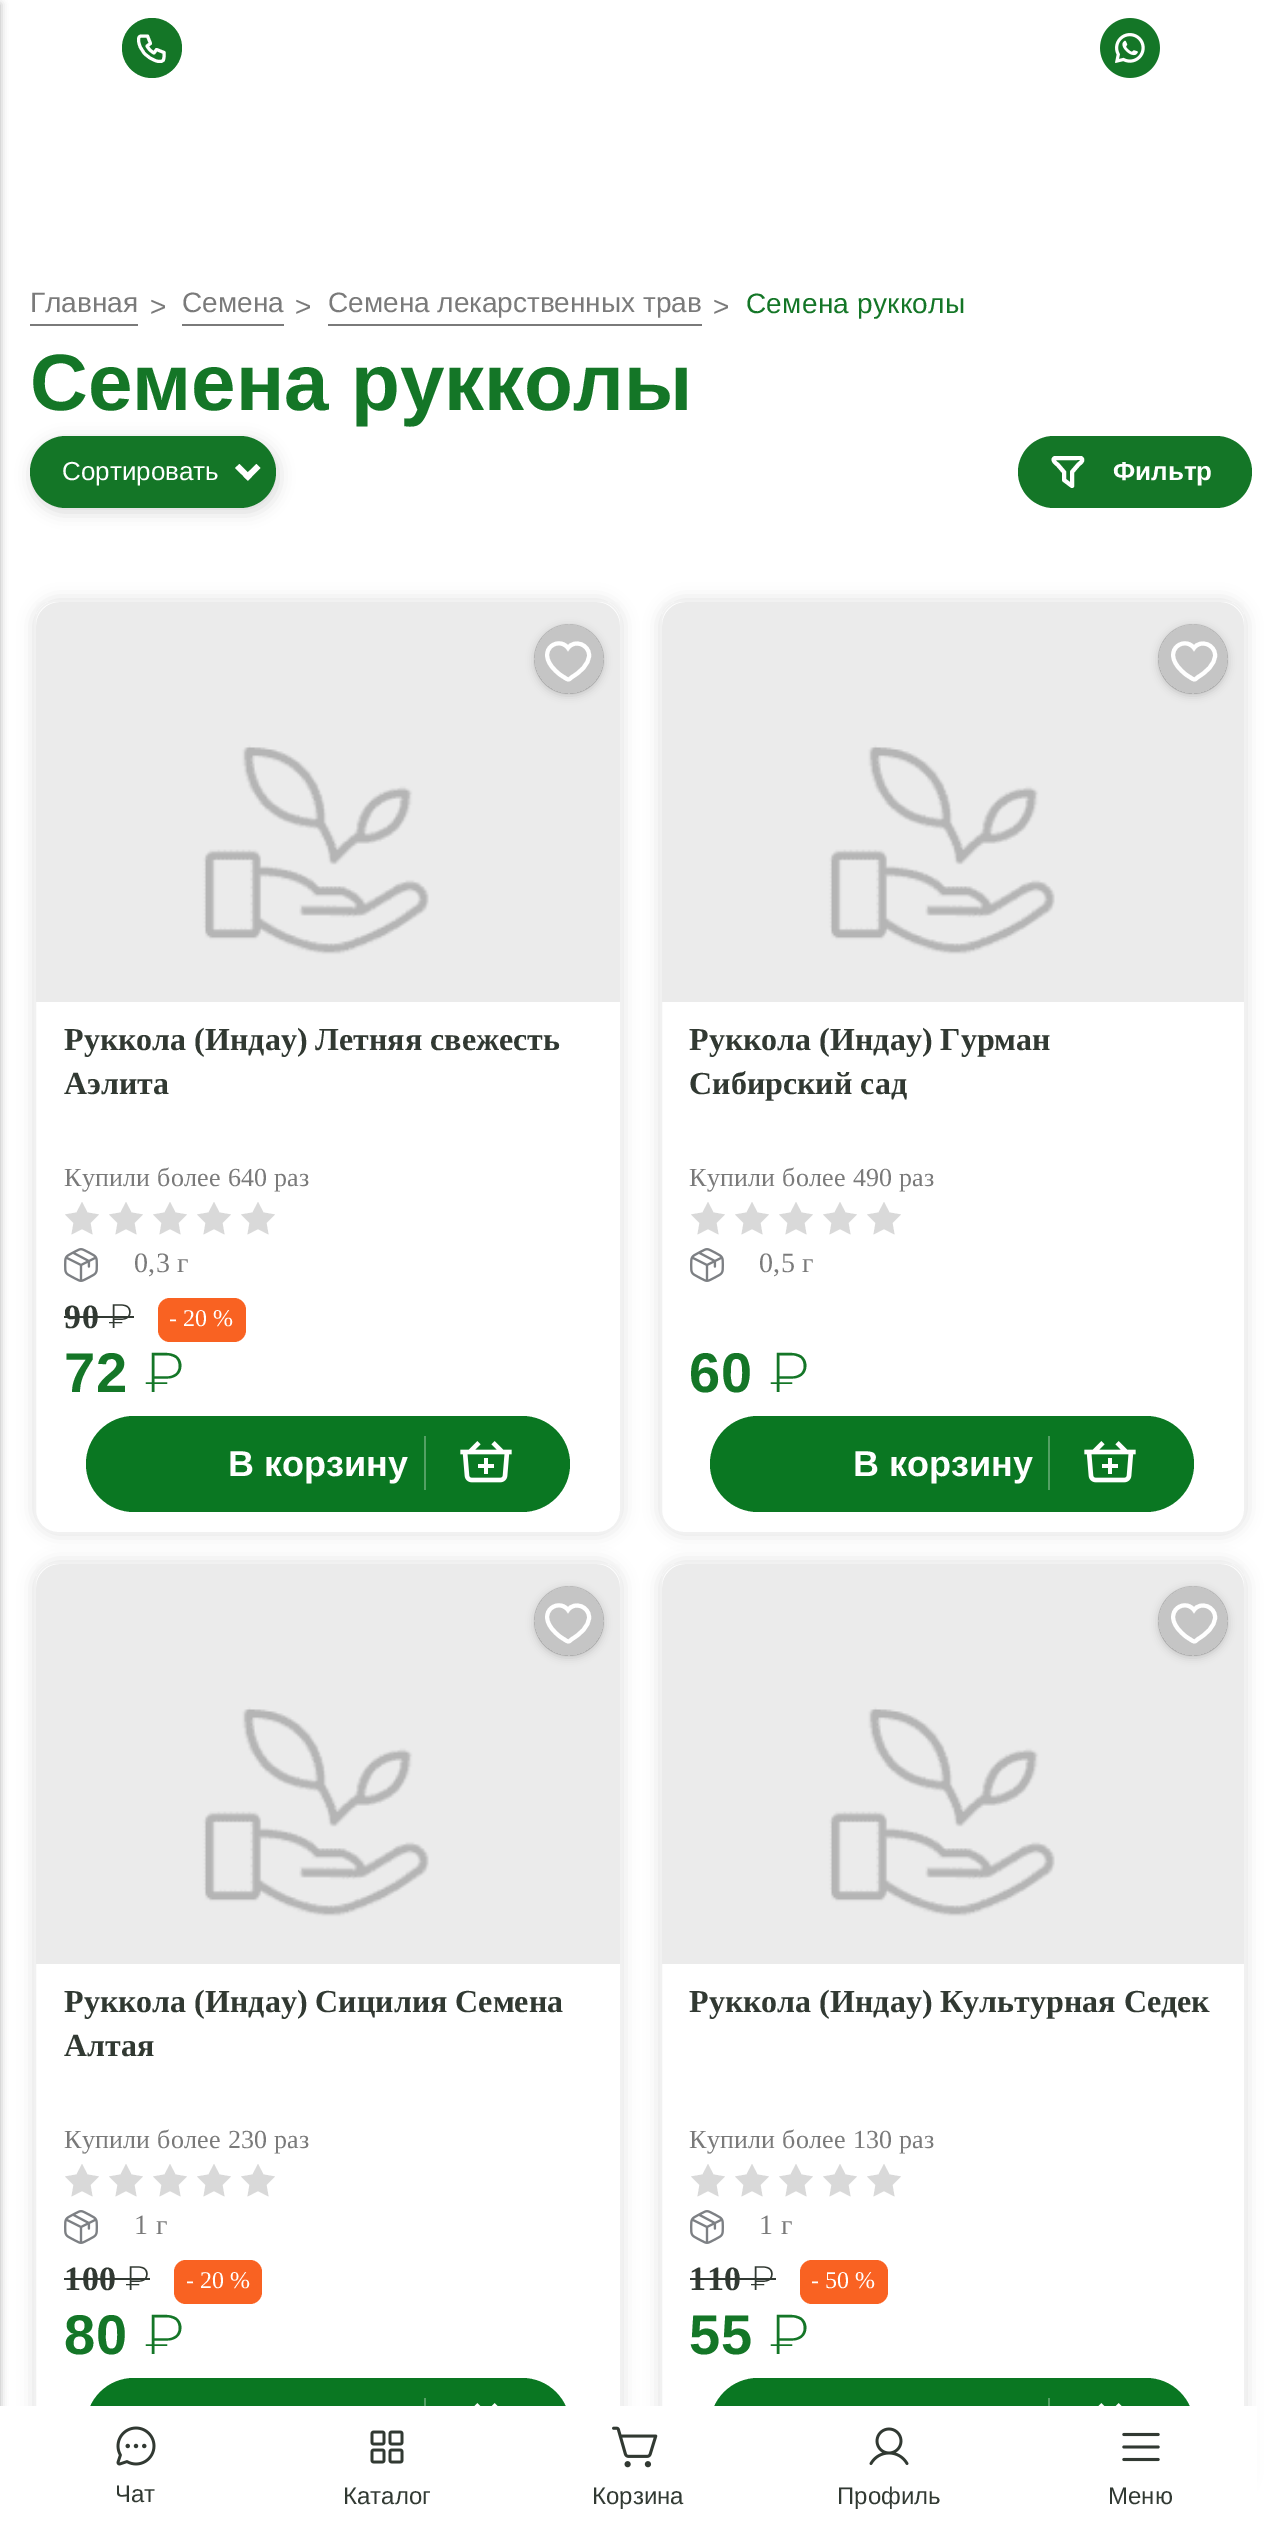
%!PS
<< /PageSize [1281 2527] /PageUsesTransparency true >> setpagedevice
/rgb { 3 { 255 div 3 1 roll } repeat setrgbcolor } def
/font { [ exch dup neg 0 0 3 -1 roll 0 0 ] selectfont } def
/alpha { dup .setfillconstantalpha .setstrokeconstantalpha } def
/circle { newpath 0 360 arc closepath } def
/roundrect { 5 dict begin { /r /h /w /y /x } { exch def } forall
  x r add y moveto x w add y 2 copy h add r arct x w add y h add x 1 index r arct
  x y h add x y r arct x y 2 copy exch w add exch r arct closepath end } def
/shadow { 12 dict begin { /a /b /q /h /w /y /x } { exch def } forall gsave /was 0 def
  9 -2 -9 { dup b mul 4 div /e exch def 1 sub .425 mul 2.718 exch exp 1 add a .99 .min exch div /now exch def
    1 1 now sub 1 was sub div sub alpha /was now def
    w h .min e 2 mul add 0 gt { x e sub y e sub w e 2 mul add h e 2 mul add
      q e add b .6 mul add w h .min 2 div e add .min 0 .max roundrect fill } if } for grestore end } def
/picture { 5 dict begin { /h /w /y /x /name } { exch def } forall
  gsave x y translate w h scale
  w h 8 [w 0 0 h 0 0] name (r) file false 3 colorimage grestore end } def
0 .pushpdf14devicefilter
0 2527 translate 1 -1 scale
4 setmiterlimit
255 255 255 rgb
0 0 1281 2527 rectfill
0 0 0 rgb
-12 4 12 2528 0 4 0.15 shadow
-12 4 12 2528 0 4 0.15 shadow
20 118 39 rgb
152 48 30 circle fill
255 255 255 rgb
3 setlinewidth
1 setlinecap
1 setlinejoin
141.5 36 moveto 147.5 36 lineto 150.5 43.5 lineto 147 46 lineto 148.5 49 151 51.5 154 53 curveto 156.5 49.5 lineto 164 52.5 lineto 164 59.5 165 63 156.5 61 curveto 152 59.5 147.5 57 144 53 curveto 140.5 47.5 lineto 139.5 45.5 136 36 141.5 36 curveto closepath stroke
(img/1.rgb) 1100 18 60 60 picture
[
  [30 324 108 2 122 122 122]
  [182 324 102 2 122 122 122]
  [328 324 374 2 122 122 122]
] { aload pop rgb rectfill } forall
0 0 0 rgb
32 440 246 72 36 8 0.15 shadow
20 118 39 rgb
30 436 246 72 36 roundrect fill
255 255 255 rgb
256.5 464 moveto 260.5 468 lineto 248 480.5 lineto 243.5 476.5 lineto closepath fill
239.5 464 moveto 252 476.5 lineto 248 480.5 lineto 235 468 lineto closepath fill
20 118 39 rgb
1018 436 234 72 36 roundrect fill
gsave
1050 456 36 32 rectclip
255 255 255 rgb
4 setlinewidth
1055 458 moveto 1076.5 458 lineto 1078 458 1081 457 1082 459 curveto 1083.5 461 1079.5 463.5 1078.5 464.5 curveto 1072 472 lineto 1072 486 lineto 1064 480 lineto 1064 472 lineto 1057.5 464.5 lineto 1056.5 464 1051 459.5 1055 458 curveto closepath stroke
grestore
222 222 222 rgb
34 600 588 934 24 8 1 shadow
255 255 255 rgb
35 601 586 932 23 roundrect gsave fill grestore
241 241 241 rgb
2 setlinewidth
0 setlinecap
0 setlinejoin
stroke
(img/2.rgb) 36 602 584 400 picture
gsave
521 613 moveto 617 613 lineto 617 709 lineto 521 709 lineto closepath 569 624 moveto 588.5 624 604 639.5 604 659 curveto 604 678.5 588.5 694 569 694 curveto 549.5 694 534 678.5 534 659 curveto 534 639.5 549.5 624 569 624 curveto closepath eoclip newpath
0 0 0 rgb
534 626 70 70 35 4 0.16 shadow
grestore
0.16 alpha
0 0 0 rgb
569 659 35 circle fill
1 alpha
255 255 255 rgb
4 setlinewidth
589 655 moveto 589 665 579.5 672.5 572 677 curveto 569.5 679 569 680.5 566 678.5 curveto 560.5 675 lineto 531 652.5 558 634.5 568 648 curveto 574.5 639 589 644.5 589 655 curveto closepath stroke
217 217 217 rgb
82 1202 moveto 87.5 1212.5 lineto 99 1214.5 lineto 90.5 1223 lineto 92.5 1234.5 lineto 82 1229 lineto 71.5 1234.5 lineto 73.5 1223 lineto 65 1214.5 lineto 76.5 1212.5 lineto closepath fill
126 1202 moveto 131.5 1212.5 lineto 143 1214.5 lineto 134.5 1223 lineto 136.5 1234.5 lineto 126 1229 lineto 115.5 1234.5 lineto 117.5 1223 lineto 109 1214.5 lineto 120.5 1212.5 lineto closepath fill
170 1202 moveto 175.5 1212.5 lineto 187 1214.5 lineto 178.5 1223 lineto 180.5 1234.5 lineto 170 1229 lineto 159.5 1234.5 lineto 161.5 1223 lineto 153 1214.5 lineto 164.5 1212.5 lineto closepath fill
214 1202 moveto 219.5 1212.5 lineto 231 1214.5 lineto 222.5 1223 lineto 224.5 1234.5 lineto 214 1229 lineto 203.5 1234.5 lineto 205.5 1223 lineto 197 1214.5 lineto 208.5 1212.5 lineto closepath fill
258 1202 moveto 263.5 1212.5 lineto 275 1214.5 lineto 266.5 1223 lineto 268.5 1234.5 lineto 258 1229 lineto 247.5 1234.5 lineto 249.5 1223 lineto 241 1214.5 lineto 252.5 1212.5 lineto closepath fill
(img/3.rgb) 64 1248 34 34 picture
49 57 50 rgb
64 1316 70 2 rectfill
249 98 34 rgb
158 1298 88 44 12 roundrect fill
10 119 34 rgb
86 1416 484 96 48 roundrect fill
84 160 100 rgb
424 1436 2 54 rectfill
(img/4.rgb) 460 1441 52 42 picture
222 222 222 rgb
660 600 586 934 24 8 1 shadow
255 255 255 rgb
661 601 584 932 23 roundrect gsave fill grestore
241 241 241 rgb
2 setlinewidth
stroke
(img/5.rgb) 662 602 582 400 picture
gsave
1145 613 moveto 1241 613 lineto 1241 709 lineto 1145 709 lineto closepath 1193 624 moveto 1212.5 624 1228 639.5 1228 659 curveto 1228 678.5 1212.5 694 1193 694 curveto 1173.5 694 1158 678.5 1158 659 curveto 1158 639.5 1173.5 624 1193 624 curveto closepath eoclip newpath
0 0 0 rgb
1158 626 70 70 35 4 0.16 shadow
grestore
0.16 alpha
0 0 0 rgb
1193 659 35 circle fill
1 alpha
255 255 255 rgb
4 setlinewidth
1215 655 moveto 1215 665 1205.5 672.5 1198 677 curveto 1195.5 679 1195 680.5 1192 678.5 curveto 1186.5 675 lineto 1157 652.5 1184 634.5 1194 648 curveto 1200.5 639 1215 644.5 1215 655 curveto closepath stroke
217 217 217 rgb
708 1202 moveto 713.5 1212.5 lineto 725 1214.5 lineto 716.5 1223 lineto 718.5 1234.5 lineto 708 1229 lineto 697.5 1234.5 lineto 699.5 1223 lineto 691 1214.5 lineto 702.5 1212.5 lineto closepath fill
752 1202 moveto 757.5 1212.5 lineto 769 1214.5 lineto 760.5 1223 lineto 762.5 1234.5 lineto 752 1229 lineto 741.5 1234.5 lineto 743.5 1223 lineto 735 1214.5 lineto 746.5 1212.5 lineto closepath fill
796 1202 moveto 801.5 1212.5 lineto 813 1214.5 lineto 804.5 1223 lineto 806.5 1234.5 lineto 796 1229 lineto 785.5 1234.5 lineto 787.5 1223 lineto 779 1214.5 lineto 790.5 1212.5 lineto closepath fill
840 1202 moveto 845.5 1212.5 lineto 857 1214.5 lineto 848.5 1223 lineto 850.5 1234.5 lineto 840 1229 lineto 829.5 1234.5 lineto 831.5 1223 lineto 823 1214.5 lineto 834.5 1212.5 lineto closepath fill
884 1202 moveto 889.5 1212.5 lineto 901 1214.5 lineto 892.5 1223 lineto 894.5 1234.5 lineto 884 1229 lineto 873.5 1234.5 lineto 875.5 1223 lineto 867 1214.5 lineto 878.5 1212.5 lineto closepath fill
(img/3.rgb) 690 1248 34 34 picture
10 119 34 rgb
710 1416 484 96 48 roundrect fill
84 160 100 rgb
1048 1436 2 54 rectfill
(img/4.rgb) 1084 1441 52 42 picture
222 222 222 rgb
34 1562 588 934 24 8 1 shadow
255 255 255 rgb
35 1563 586 932 23 roundrect gsave fill grestore
241 241 241 rgb
2 setlinewidth
stroke
(img/2.rgb) 36 1564 584 400 picture
gsave
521 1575 moveto 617 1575 lineto 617 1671 lineto 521 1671 lineto closepath 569 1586 moveto 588.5 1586 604 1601.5 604 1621 curveto 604 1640.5 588.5 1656 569 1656 curveto 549.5 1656 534 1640.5 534 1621 curveto 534 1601.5 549.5 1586 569 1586 curveto closepath eoclip newpath
0 0 0 rgb
534 1588 70 70 35 4 0.16 shadow
grestore
0.16 alpha
0 0 0 rgb
569 1621 35 circle fill
1 alpha
255 255 255 rgb
4 setlinewidth
589 1617 moveto 589 1627 579.5 1634.5 572 1639 curveto 569.5 1641 569 1642.5 566 1640.5 curveto 560.5 1637 lineto 531 1614.5 558 1596.5 568 1610 curveto 574.5 1601 589 1606.5 589 1617 curveto closepath stroke
217 217 217 rgb
82 2164 moveto 87.5 2174.5 lineto 99 2176.5 lineto 90.5 2185 lineto 92.5 2196.5 lineto 82 2191 lineto 71.5 2196.5 lineto 73.5 2185 lineto 65 2176.5 lineto 76.5 2174.5 lineto closepath fill
126 2164 moveto 131.5 2174.5 lineto 143 2176.5 lineto 134.5 2185 lineto 136.5 2196.5 lineto 126 2191 lineto 115.5 2196.5 lineto 117.5 2185 lineto 109 2176.5 lineto 120.5 2174.5 lineto closepath fill
170 2164 moveto 175.5 2174.5 lineto 187 2176.5 lineto 178.5 2185 lineto 180.5 2196.5 lineto 170 2191 lineto 159.5 2196.5 lineto 161.5 2185 lineto 153 2176.5 lineto 164.5 2174.5 lineto closepath fill
214 2164 moveto 219.5 2174.5 lineto 231 2176.5 lineto 222.5 2185 lineto 224.5 2196.5 lineto 214 2191 lineto 203.5 2196.5 lineto 205.5 2185 lineto 197 2176.5 lineto 208.5 2174.5 lineto closepath fill
258 2164 moveto 263.5 2174.5 lineto 275 2176.5 lineto 266.5 2185 lineto 268.5 2196.5 lineto 258 2191 lineto 247.5 2196.5 lineto 249.5 2185 lineto 241 2176.5 lineto 252.5 2174.5 lineto closepath fill
(img/3.rgb) 64 2210 34 34 picture
49 57 50 rgb
64 2278 86 2 rectfill
249 98 34 rgb
174 2260 88 44 12 roundrect fill
10 119 34 rgb
86 2378 484 96 48 roundrect fill
84 160 100 rgb
424 2398 2 8 rectfill
(img/6.rgb) 474 2403 24 3 picture
222 222 222 rgb
660 1562 586 934 24 8 1 shadow
255 255 255 rgb
661 1563 584 932 23 roundrect gsave fill grestore
241 241 241 rgb
2 setlinewidth
stroke
(img/5.rgb) 662 1564 582 400 picture
gsave
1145 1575 moveto 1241 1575 lineto 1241 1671 lineto 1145 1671 lineto closepath 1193 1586 moveto 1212.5 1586 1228 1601.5 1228 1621 curveto 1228 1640.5 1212.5 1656 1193 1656 curveto 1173.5 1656 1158 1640.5 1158 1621 curveto 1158 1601.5 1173.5 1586 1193 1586 curveto closepath eoclip newpath
0 0 0 rgb
1158 1588 70 70 35 4 0.16 shadow
grestore
0.16 alpha
0 0 0 rgb
1193 1621 35 circle fill
1 alpha
255 255 255 rgb
4 setlinewidth
1215 1617 moveto 1215 1627 1205.5 1634.5 1198 1639 curveto 1195.5 1641 1195 1642.5 1192 1640.5 curveto 1186.5 1637 lineto 1157 1614.5 1184 1596.5 1194 1610 curveto 1200.5 1601 1215 1606.5 1215 1617 curveto closepath stroke
217 217 217 rgb
708 2164 moveto 713.5 2174.5 lineto 725 2176.5 lineto 716.5 2185 lineto 718.5 2196.5 lineto 708 2191 lineto 697.5 2196.5 lineto 699.5 2185 lineto 691 2176.5 lineto 702.5 2174.5 lineto closepath fill
752 2164 moveto 757.5 2174.5 lineto 769 2176.5 lineto 760.5 2185 lineto 762.5 2196.5 lineto 752 2191 lineto 741.5 2196.5 lineto 743.5 2185 lineto 735 2176.5 lineto 746.5 2174.5 lineto closepath fill
796 2164 moveto 801.5 2174.5 lineto 813 2176.5 lineto 804.5 2185 lineto 806.5 2196.5 lineto 796 2191 lineto 785.5 2196.5 lineto 787.5 2185 lineto 779 2176.5 lineto 790.5 2174.5 lineto closepath fill
840 2164 moveto 845.5 2174.5 lineto 857 2176.5 lineto 848.5 2185 lineto 850.5 2196.5 lineto 840 2191 lineto 829.5 2196.5 lineto 831.5 2185 lineto 823 2176.5 lineto 834.5 2174.5 lineto closepath fill
884 2164 moveto 889.5 2174.5 lineto 901 2176.5 lineto 892.5 2185 lineto 894.5 2196.5 lineto 884 2191 lineto 873.5 2196.5 lineto 875.5 2185 lineto 867 2176.5 lineto 878.5 2174.5 lineto closepath fill
(img/3.rgb) 690 2210 34 34 picture
49 57 50 rgb
690 2278 86 2 rectfill
249 98 34 rgb
800 2260 88 44 12 roundrect fill
10 119 34 rgb
710 2378 484 96 48 roundrect fill
84 160 100 rgb
1048 2398 2 8 rectfill
(img/6.rgb) 1098 2403 24 3 picture
255 255 255 rgb
0 2406 1257 121 rectfill
(img/7.rgb) 116 2426 40 40 picture
(img/8.rgb) 370 2430 34 34 picture
(img/9.rgb) 612 2426 46 42 picture
(img/10.rgb) 869 2427 40 38 picture
(img/11.rgb) 1122 2432 38 30 picture
/LiberationSans-Regular 28 font
122 122 122 rgb
[
  [(Главная) 30 312]
  [(>) 150 316]
  [(Семена) 182 312]
  [(>) 295 316]
  [(Семена лекарственных трав) 328 312]
  [(>) 713 316]
] { aload pop moveto show } forall
20 118 39 rgb
746 313 moveto 0.25 0 (Семена рукколы) ashow
/LiberationSans-Bold 80 font
30 410 moveto (Семена рукколы) show
/LiberationSans-Regular 26 font
255 255 255 rgb
62 480 moveto (Сортировать) show
/LiberationSans-Bold 26 font
1113 480 moveto (Фильтр) show
/LiberationSerif-Bold 32 font
49 57 50 rgb
64 1050 moveto (Руккола \(Индау\) Летняя свежесть) show
64 1094 moveto (Аэлита) show
/LiberationSerif-Regular 26 font
122 122 122 rgb
64 1186 moveto 0.25 0 (Купили более 640 раз) ashow
/LiberationSerif-Regular 28 font
134 1272 moveto 0.25 0 (0,3 г) ashow
/LiberationSerif-Bold 34 font
49 57 50 rgb
64 1328 moveto 0.5 0 (90) ashow
/Montserrat-Light 34 font
108 1328 moveto 0.5 0 (₽) ashow
/LiberationSerif-Regular 24 font
255 255 255 rgb
169 1326 moveto (- 20 %) show
/LiberationSans-Bold 56 font
20 118 39 rgb
64 1392 moveto 1 0 (72) ashow
/Montserrat-Light 56 font
144 1392 moveto 1 0 (₽) ashow
/LiberationSans-Bold 36 font
255 255 255 rgb
228 1476 moveto (В корзину) show
/LiberationSerif-Bold 32 font
49 57 50 rgb
689 1050 moveto (Руккола \(Индау\) Гурман) show
689 1094 moveto (Сибирский сад) show
/LiberationSerif-Regular 26 font
122 122 122 rgb
689 1186 moveto 0.25 0 (Купили более 490 раз) ashow
/LiberationSerif-Regular 28 font
759 1272 moveto 0.25 0 (0,5 г) ashow
/LiberationSans-Bold 56 font
20 118 39 rgb
689 1392 moveto 1 0 (60) ashow
/Montserrat-Light 56 font
769 1392 moveto 1 0 (₽) ashow
/LiberationSans-Bold 36 font
255 255 255 rgb
853 1476 moveto (В корзину) show
/LiberationSerif-Bold 32 font
49 57 50 rgb
64 2012 moveto (Руккола \(Индау\) Сицилия Семена) show
64 2056 moveto (Алтая) show
/LiberationSerif-Regular 26 font
122 122 122 rgb
64 2148 moveto 0.25 0 (Купили более 230 раз) ashow
/LiberationSerif-Regular 28 font
134 2234 moveto 0.25 0 (1 г) ashow
/LiberationSerif-Bold 34 font
49 57 50 rgb
64 2290 moveto 0.5 0 (100) ashow
/Montserrat-Light 34 font
125 2290 moveto 0.5 0 (₽) ashow
/LiberationSerif-Regular 24 font
255 255 255 rgb
186 2288 moveto (- 20 %) show
/LiberationSans-Bold 56 font
20 118 39 rgb
64 2354 moveto 1 0 (80) ashow
/Montserrat-Light 56 font
144 2354 moveto 1 0 (₽) ashow
/LiberationSerif-Bold 32 font
49 57 50 rgb
689 2012 moveto (Руккола \(Индау\) Культурная Седек) show
/LiberationSerif-Regular 26 font
122 122 122 rgb
689 2148 moveto 0.25 0 (Купили более 130 раз) ashow
/LiberationSerif-Regular 28 font
759 2234 moveto 0.25 0 (1 г) ashow
/LiberationSerif-Bold 34 font
49 57 50 rgb
689 2290 moveto 0.5 0 (110) ashow
/Montserrat-Light 34 font
750 2290 moveto 0.5 0 (₽) ashow
/LiberationSerif-Regular 24 font
255 255 255 rgb
811 2288 moveto (- 50 %) show
/LiberationSans-Bold 56 font
20 118 39 rgb
689 2354 moveto 1 0 (55) ashow
/Montserrat-Light 56 font
769 2354 moveto 1 0 (₽) ashow
/LiberationSans-Regular 24 font
49 57 50 rgb
[
  [(Чат) 115 2502]
  [(Каталог) 343 2504]
  [(Корзина) 592 2504]
  [(Профиль) 837 2504]
  [(Меню) 1108 2504]
] { aload pop moveto show } forall
.poppdf14devicefilter showpage
